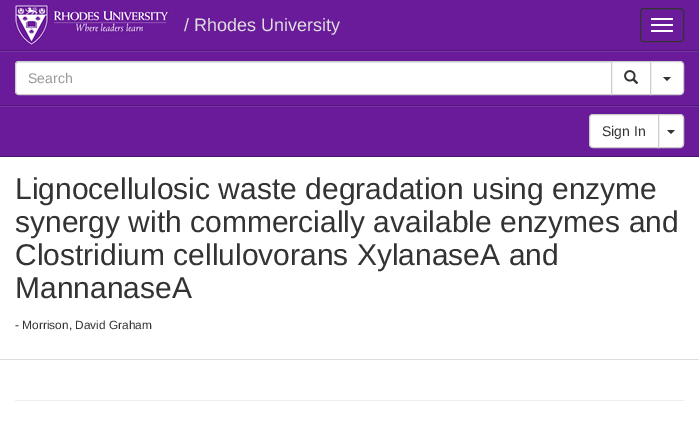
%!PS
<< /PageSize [699 439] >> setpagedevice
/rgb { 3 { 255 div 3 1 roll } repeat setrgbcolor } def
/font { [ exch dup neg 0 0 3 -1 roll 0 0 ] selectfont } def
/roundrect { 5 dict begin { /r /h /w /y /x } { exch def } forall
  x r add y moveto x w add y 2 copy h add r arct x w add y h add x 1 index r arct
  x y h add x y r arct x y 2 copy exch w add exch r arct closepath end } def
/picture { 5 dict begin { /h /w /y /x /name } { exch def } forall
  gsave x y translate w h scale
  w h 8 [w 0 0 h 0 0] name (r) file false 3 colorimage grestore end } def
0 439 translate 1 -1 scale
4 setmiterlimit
255 255 255 rgb
0 0 699 439 rectfill
106 27 154 rgb
0 0 699 156 rectfill
76 19 111 rgb
0 156 699 1 rectfill
(img/1.rgb) 15 5 154 40 picture
51 51 51 rgb
640.5 8.5 43 33 3.5 roundrect stroke
255 255 255 rgb
651 18 22 2 1 roundrect fill
651 24 22 2 1 roundrect fill
651 30 22 2 1 roundrect fill
[
  [0 106 699 1 121 50 164]
  [0 51 699 1 121 50 164]
  [0 50 699 1 85 22 124]
  [0 105 699 1 85 22 124]
] { aload pop rgb rectfill } forall
255 255 255 rgb
19 61 moveto 612 61 lineto 612 95 lineto 19 95 lineto 17 95 15 93 15 91 curveto 15 65 lineto 15 63 17 61 19 61 curveto closepath fill
236 236 236 rgb
19 63 moveto 611 63 lineto 611 62 lineto 19 62 lineto 17 62 16 63 16 65 curveto 16 66 lineto 16 64 17 63 19 63 curveto closepath fill
204 204 204 rgb
19 61.5 moveto 611.5 61.5 lineto 611.5 94.5 lineto 19 94.5 lineto 17 94.5 15.5 93 15.5 91 curveto 15.5 65 lineto 15.5 63 17 61.5 19 61.5 curveto closepath stroke
255 255 255 rgb
611.5 61.5 moveto 650.5 61.5 lineto 650.5 94.5 lineto 611.5 94.5 lineto closepath gsave fill grestore
204 204 204 rgb
stroke
(img/2.rgb) 624 70 15 14 picture
255 255 255 rgb
650.5 61.5 moveto 680 61.5 lineto 682 61.5 683.5 63 683.5 65 curveto 683.5 91 lineto 683.5 93 682 94.5 680 94.5 curveto 650.5 94.5 lineto closepath gsave fill grestore
204 204 204 rgb
stroke
51 51 51 rgb
663 77 moveto 671 77 lineto 667 81 lineto closepath fill
255 255 255 rgb
593 114.5 moveto 658.5 114.5 lineto 658.5 147.5 lineto 593 147.5 lineto 591 147.5 589.5 146 589.5 144 curveto 589.5 118 lineto 589.5 116 591 114.5 593 114.5 curveto closepath gsave fill grestore
204 204 204 rgb
stroke
255 255 255 rgb
658.5 114.5 moveto 680 114.5 lineto 682 114.5 683.5 116 683.5 118 curveto 683.5 144 lineto 683.5 146 682 147.5 680 147.5 curveto 658.5 147.5 lineto closepath gsave fill grestore
204 204 204 rgb
stroke
51 51 51 rgb
667 130 moveto 675 130 lineto 671 134 lineto closepath fill
221 221 221 rgb
0 359 699 1 rectfill
238 238 238 rgb
15 400 669 1 rectfill
/LiberationSans-Regular 18 font
224 224 224 rgb
184 31 moveto (/ Rhodes University) show
/LiberationSans-Regular 14 font
153 153 153 rgb
28 83 moveto (Search) show
51 51 51 rgb
602 136 moveto (Sign In) show
/LiberationSans-Regular 30 font
[
  [(Lignocellulosic waste degradation using enzyme) 15 199]
  [(synergy with commercially available enzymes and) 15 232]
  [(Clostridium cellulovorans XylanaseA and) 15 265]
  [(MannanaseA) 15 298]
] { aload pop moveto show } forall
/LiberationSans-Regular 11.9 font
15 329 moveto (- Morrison, David Graham) show
showpage
